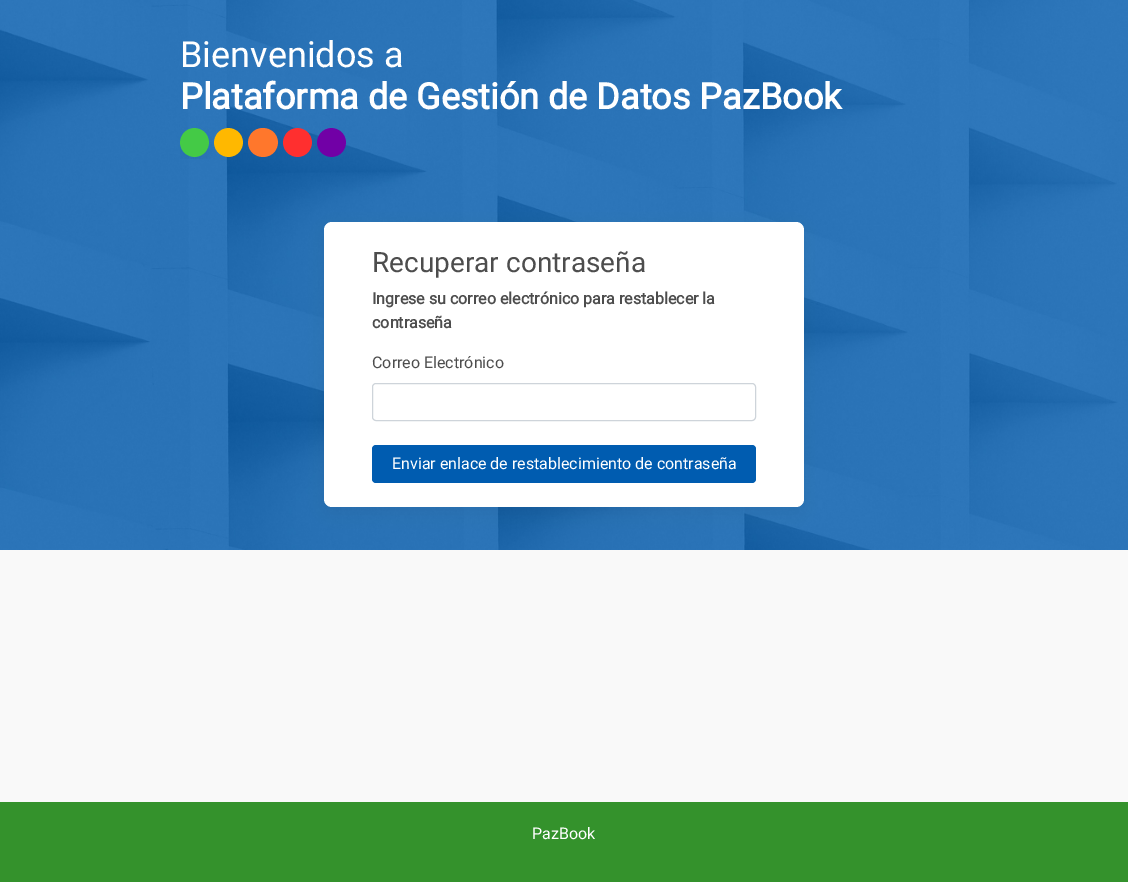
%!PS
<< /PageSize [1128 882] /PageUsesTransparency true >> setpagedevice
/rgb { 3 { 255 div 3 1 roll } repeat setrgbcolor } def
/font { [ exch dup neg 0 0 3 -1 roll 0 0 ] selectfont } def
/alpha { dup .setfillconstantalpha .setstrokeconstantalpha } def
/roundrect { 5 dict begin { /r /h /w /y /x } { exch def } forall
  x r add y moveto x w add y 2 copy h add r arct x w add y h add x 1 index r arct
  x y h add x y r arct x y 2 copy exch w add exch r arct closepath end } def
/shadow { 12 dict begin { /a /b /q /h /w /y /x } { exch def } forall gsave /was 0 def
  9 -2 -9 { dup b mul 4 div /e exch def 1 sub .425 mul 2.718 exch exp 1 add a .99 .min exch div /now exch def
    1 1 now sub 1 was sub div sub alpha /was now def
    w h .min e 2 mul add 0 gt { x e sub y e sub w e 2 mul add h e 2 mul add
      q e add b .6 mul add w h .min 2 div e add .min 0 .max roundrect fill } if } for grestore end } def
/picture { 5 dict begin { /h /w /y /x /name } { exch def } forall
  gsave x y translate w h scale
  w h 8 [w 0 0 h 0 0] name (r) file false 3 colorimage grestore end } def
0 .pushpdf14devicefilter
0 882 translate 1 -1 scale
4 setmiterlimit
249 249 249 rgb
0 0 1128 882 rectfill
(img/1.rgb) 0 0 1128 550 picture
(img/2.rgb) 180 128 166 31 picture
0 0 0 rgb
324 228 480 285 8 9 0.06 shadow
255 255 255 rgb
324 222 480 285 8 roundrect fill
206 212 218 rgb
372.5 383.5 383 37 3.5 roundrect stroke
0 92 176 rgb
372 445 384 38 4 roundrect fill
52 146 44 rgb
0 802 1128 80 rectfill
/Roboto-Regular 36 font
255 255 255 rgb
180 67 moveto (Bienvenidos a) show
/Roboto-Bold 36 font
180 109 moveto (Plataforma de Gestión de Datos PazBook) show
/Roboto-Regular 28 font
77 77 77 rgb
372 272 moveto (Recuperar contraseña) show
/Roboto-Bold 16 font
372 304 moveto (Ingrese su correo electrónico para restablecer la) show
372 328 moveto (contraseña) show
/Roboto-Regular 16 font
372 368 moveto (Correo Electrónico) show
255 255 255 rgb
392 469 moveto (Enviar enlace de restablecimiento de contraseña) show
532 839 moveto (PazBook) show
.poppdf14devicefilter showpage
